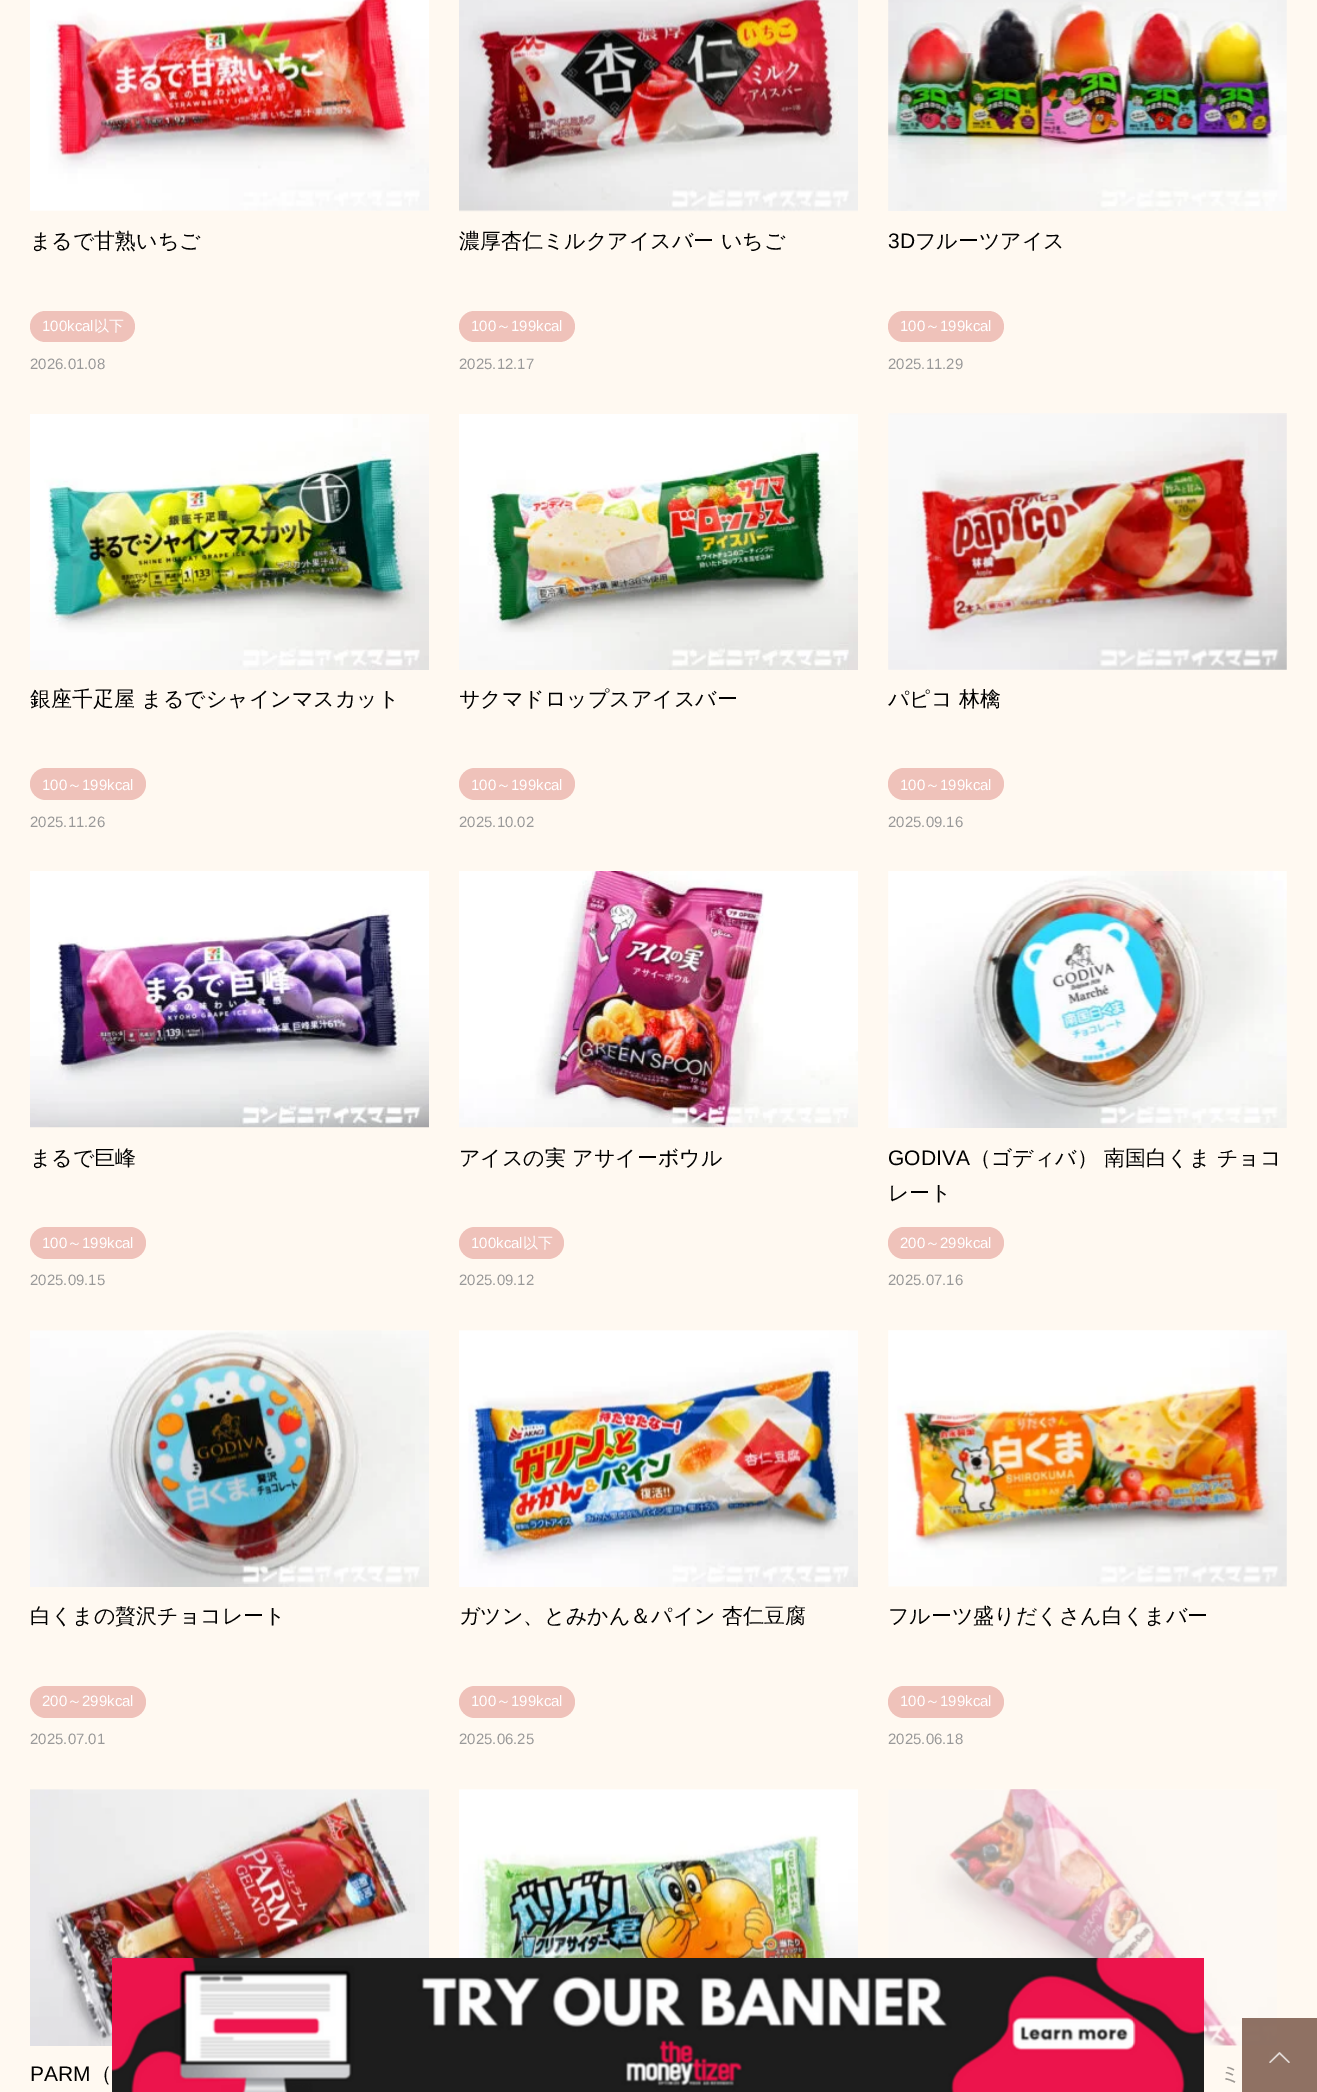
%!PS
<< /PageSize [1317 2092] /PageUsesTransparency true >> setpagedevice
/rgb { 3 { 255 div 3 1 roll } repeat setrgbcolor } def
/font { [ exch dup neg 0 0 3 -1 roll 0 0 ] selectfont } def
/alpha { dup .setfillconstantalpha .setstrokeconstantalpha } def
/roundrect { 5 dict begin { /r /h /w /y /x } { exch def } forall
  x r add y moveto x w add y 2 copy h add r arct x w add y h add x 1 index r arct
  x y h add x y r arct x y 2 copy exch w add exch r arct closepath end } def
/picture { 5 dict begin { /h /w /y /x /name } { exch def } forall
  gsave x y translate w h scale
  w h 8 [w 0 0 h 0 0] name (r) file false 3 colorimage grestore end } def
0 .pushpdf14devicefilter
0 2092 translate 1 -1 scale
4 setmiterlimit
255 249 241 rgb
0 0 1317 2092 rectfill
(img/1.rgb) 30 0 399 211 picture
239 194 186 rgb
30 311 105 31 15.5 roundrect fill
(img/2.rgb) 459 0 399 212 picture
459 311 116 31 15.5 roundrect fill
(img/3.rgb) 888 0 399 211 picture
888 311 116 31 15.5 roundrect fill
(img/4.rgb) 30 414 399 256 picture
30 768 116 32 16 roundrect fill
(img/5.rgb) 459 414 399 256 picture
459 768 116 32 16 roundrect fill
(img/6.rgb) 888 413 399 257 picture
888 768 116 32 16 roundrect fill
(img/7.rgb) 30 871 399 257 picture
30 1227 116 32 16 roundrect fill
(img/8.rgb) 459 871 399 257 picture
459 1227 105 32 16 roundrect fill
(img/9.rgb) 888 871 399 257 picture
888 1227 116 32 16 roundrect fill
(img/10.rgb) 30 1330 399 257 picture
30 1686 116 32 16 roundrect fill
(img/11.rgb) 459 1330 399 257 picture
459 1686 116 32 16 roundrect fill
(img/12.rgb) 888 1330 399 257 picture
888 1686 116 32 16 roundrect fill
(img/13.rgb) 459 1789 399 169 picture
(img/14.rgb) 30 1789 399 257 picture
(img/15.rgb) 888 1789 389 257 picture
(img/16.rgb) 112 1958 1092 134 picture
0.74 alpha
104 66 50 rgb
1242 2018 75 74 rectfill
1 alpha
(img/17.rgb) 1269 2052 21 11 picture
/WenQuanYiZenHei-Medium 21 font
0 0 0 rgb
30 248 moveto (まるで甘熟いちご) show
/LiberationSans-Regular 15 font
255 255 255 rgb
42 331 moveto (100kcal) show
/WenQuanYiZenHei-Medium 15 font
94 331 moveto (以下) show
/LiberationSans-Regular 15 font
153 153 153 rgb
30 369 moveto (2026.01.08) show
/WenQuanYiZenHei-Medium 21 font
0 0 0 rgb
459 248 moveto (濃厚杏仁ミルクアイスバー いちご) show
/LiberationSans-Regular 15 font
255 255 255 rgb
471 331 moveto (100) show
/WenQuanYiZenHei-Medium 15 font
496 331 moveto (～) show
/LiberationSans-Regular 15 font
511 331 moveto (199kcal) show
153 153 153 rgb
459 369 moveto (2025.12.17) show
/LiberationSans-Regular 21 font
0 0 0 rgb
888 248 moveto (3D) show
/WenQuanYiZenHei-Medium 21 font
915 248 moveto (フルーツアイス) show
/LiberationSans-Regular 15 font
255 255 255 rgb
900 331 moveto (100) show
/WenQuanYiZenHei-Medium 15 font
925 331 moveto (～) show
/LiberationSans-Regular 15 font
940 331 moveto (199kcal) show
153 153 153 rgb
888 369 moveto (2025.11.29) show
/WenQuanYiZenHei-Medium 21 font
0 0 0 rgb
30 706 moveto (銀座千疋屋 まるでシャインマスカット) show
/LiberationSans-Regular 15 font
255 255 255 rgb
42 790 moveto (100) show
/WenQuanYiZenHei-Medium 15 font
67 790 moveto (～) show
/LiberationSans-Regular 15 font
82 790 moveto (199kcal) show
153 153 153 rgb
30 827 moveto (2025.11.26) show
/WenQuanYiZenHei-Medium 21 font
0 0 0 rgb
459 706 moveto (サクマドロップスアイスバー) show
/LiberationSans-Regular 15 font
255 255 255 rgb
471 790 moveto (100) show
/WenQuanYiZenHei-Medium 15 font
496 790 moveto (～) show
/LiberationSans-Regular 15 font
511 790 moveto (199kcal) show
153 153 153 rgb
459 827 moveto (2025.10.02) show
/WenQuanYiZenHei-Medium 21 font
0 0 0 rgb
888 706 moveto (パピコ 林檎) show
/LiberationSans-Regular 15 font
255 255 255 rgb
900 790 moveto (100) show
/WenQuanYiZenHei-Medium 15 font
925 790 moveto (～) show
/LiberationSans-Regular 15 font
940 790 moveto (199kcal) show
153 153 153 rgb
888 827 moveto (2025.09.16) show
/WenQuanYiZenHei-Medium 21 font
0 0 0 rgb
30 1165 moveto (まるで巨峰) show
/LiberationSans-Regular 15 font
255 255 255 rgb
42 1248 moveto (100) show
/WenQuanYiZenHei-Medium 15 font
67 1248 moveto (～) show
/LiberationSans-Regular 15 font
82 1248 moveto (199kcal) show
153 153 153 rgb
30 1285 moveto (2025.09.15) show
/WenQuanYiZenHei-Medium 21 font
0 0 0 rgb
459 1165 moveto (アイスの実 アサイーボウル) show
/LiberationSans-Regular 15 font
255 255 255 rgb
471 1248 moveto (100kcal) show
/WenQuanYiZenHei-Medium 15 font
523 1248 moveto (以下) show
/LiberationSans-Regular 15 font
153 153 153 rgb
459 1285 moveto (2025.09.12) show
/LiberationSans-Regular 21 font
0 0 0 rgb
888 1165 moveto (GODIVA) show
/WenQuanYiZenHei-Medium 21 font
970 1165 moveto (（ゴディバ） 南国白くま チョコ) show
888 1200 moveto (レート) show
/LiberationSans-Regular 15 font
255 255 255 rgb
900 1248 moveto (200) show
/WenQuanYiZenHei-Medium 15 font
925 1248 moveto (～) show
/LiberationSans-Regular 15 font
940 1248 moveto (299kcal) show
153 153 153 rgb
888 1285 moveto (2025.07.16) show
/WenQuanYiZenHei-Medium 21 font
0 0 0 rgb
30 1623 moveto (白くまの贅沢チョコレート) show
/LiberationSans-Regular 15 font
255 255 255 rgb
42 1706 moveto (200) show
/WenQuanYiZenHei-Medium 15 font
67 1706 moveto (～) show
/LiberationSans-Regular 15 font
82 1706 moveto (299kcal) show
153 153 153 rgb
30 1744 moveto (2025.07.01) show
/WenQuanYiZenHei-Medium 21 font
0 0 0 rgb
459 1623 moveto (ガツン、とみかん＆パイン 杏仁豆腐) show
/LiberationSans-Regular 15 font
255 255 255 rgb
471 1706 moveto (100) show
/WenQuanYiZenHei-Medium 15 font
496 1706 moveto (～) show
/LiberationSans-Regular 15 font
511 1706 moveto (199kcal) show
153 153 153 rgb
459 1744 moveto (2025.06.25) show
/WenQuanYiZenHei-Medium 21 font
0 0 0 rgb
888 1623 moveto (フルーツ盛りだくさん白くまバー) show
/LiberationSans-Regular 15 font
255 255 255 rgb
900 1706 moveto (100) show
/WenQuanYiZenHei-Medium 15 font
925 1706 moveto (～) show
/LiberationSans-Regular 15 font
940 1706 moveto (199kcal) show
153 153 153 rgb
888 1744 moveto (2025.06.18) show
/LiberationSans-Regular 21 font
0 0 0 rgb
30 2081 moveto (PARM) show
/WenQuanYiZenHei-Medium 21 font
91 2081 moveto (（) show
156 152 147 rgb
1220 2081 moveto (ミ) show
.poppdf14devicefilter showpage
